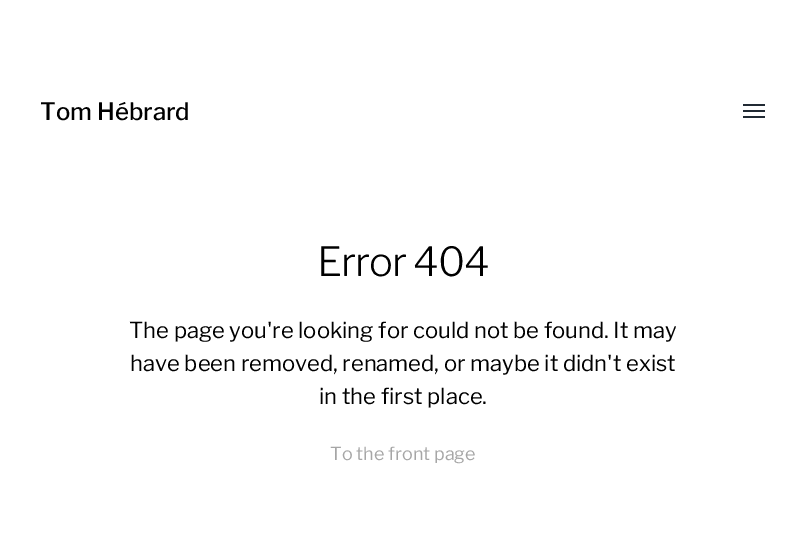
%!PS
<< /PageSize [805 553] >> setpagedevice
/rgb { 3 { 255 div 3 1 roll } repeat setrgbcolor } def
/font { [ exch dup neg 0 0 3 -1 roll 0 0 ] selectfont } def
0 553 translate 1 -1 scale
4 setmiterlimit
255 255 255 rgb
0 0 805 553 rectfill
[
  [743 104 22 2 33 42 52]
  [743 110 22 2 33 42 52]
  [743 116 22 2 33 42 52]
] { aload pop rgb rectfill } forall
/LibreFranklin-Medium 24 font
0 0 0 rgb
40 120 moveto (Tom Hébrard) show
/LibreFranklin-Light 40 font
317 276 moveto -1 0 (Error 404) ashow
/LibreFranklin-Regular 22 font
[
  [(The page you're looking for could not be found. It may) 129 338]
  [(have been removed, renamed, or maybe it didn't exist) 130 371]
  [(in the first place.) 319 404]
] { aload pop moveto show } forall
/LibreFranklin-Regular 18 font
166 166 166 rgb
330 460 moveto (To the front page) show
showpage
